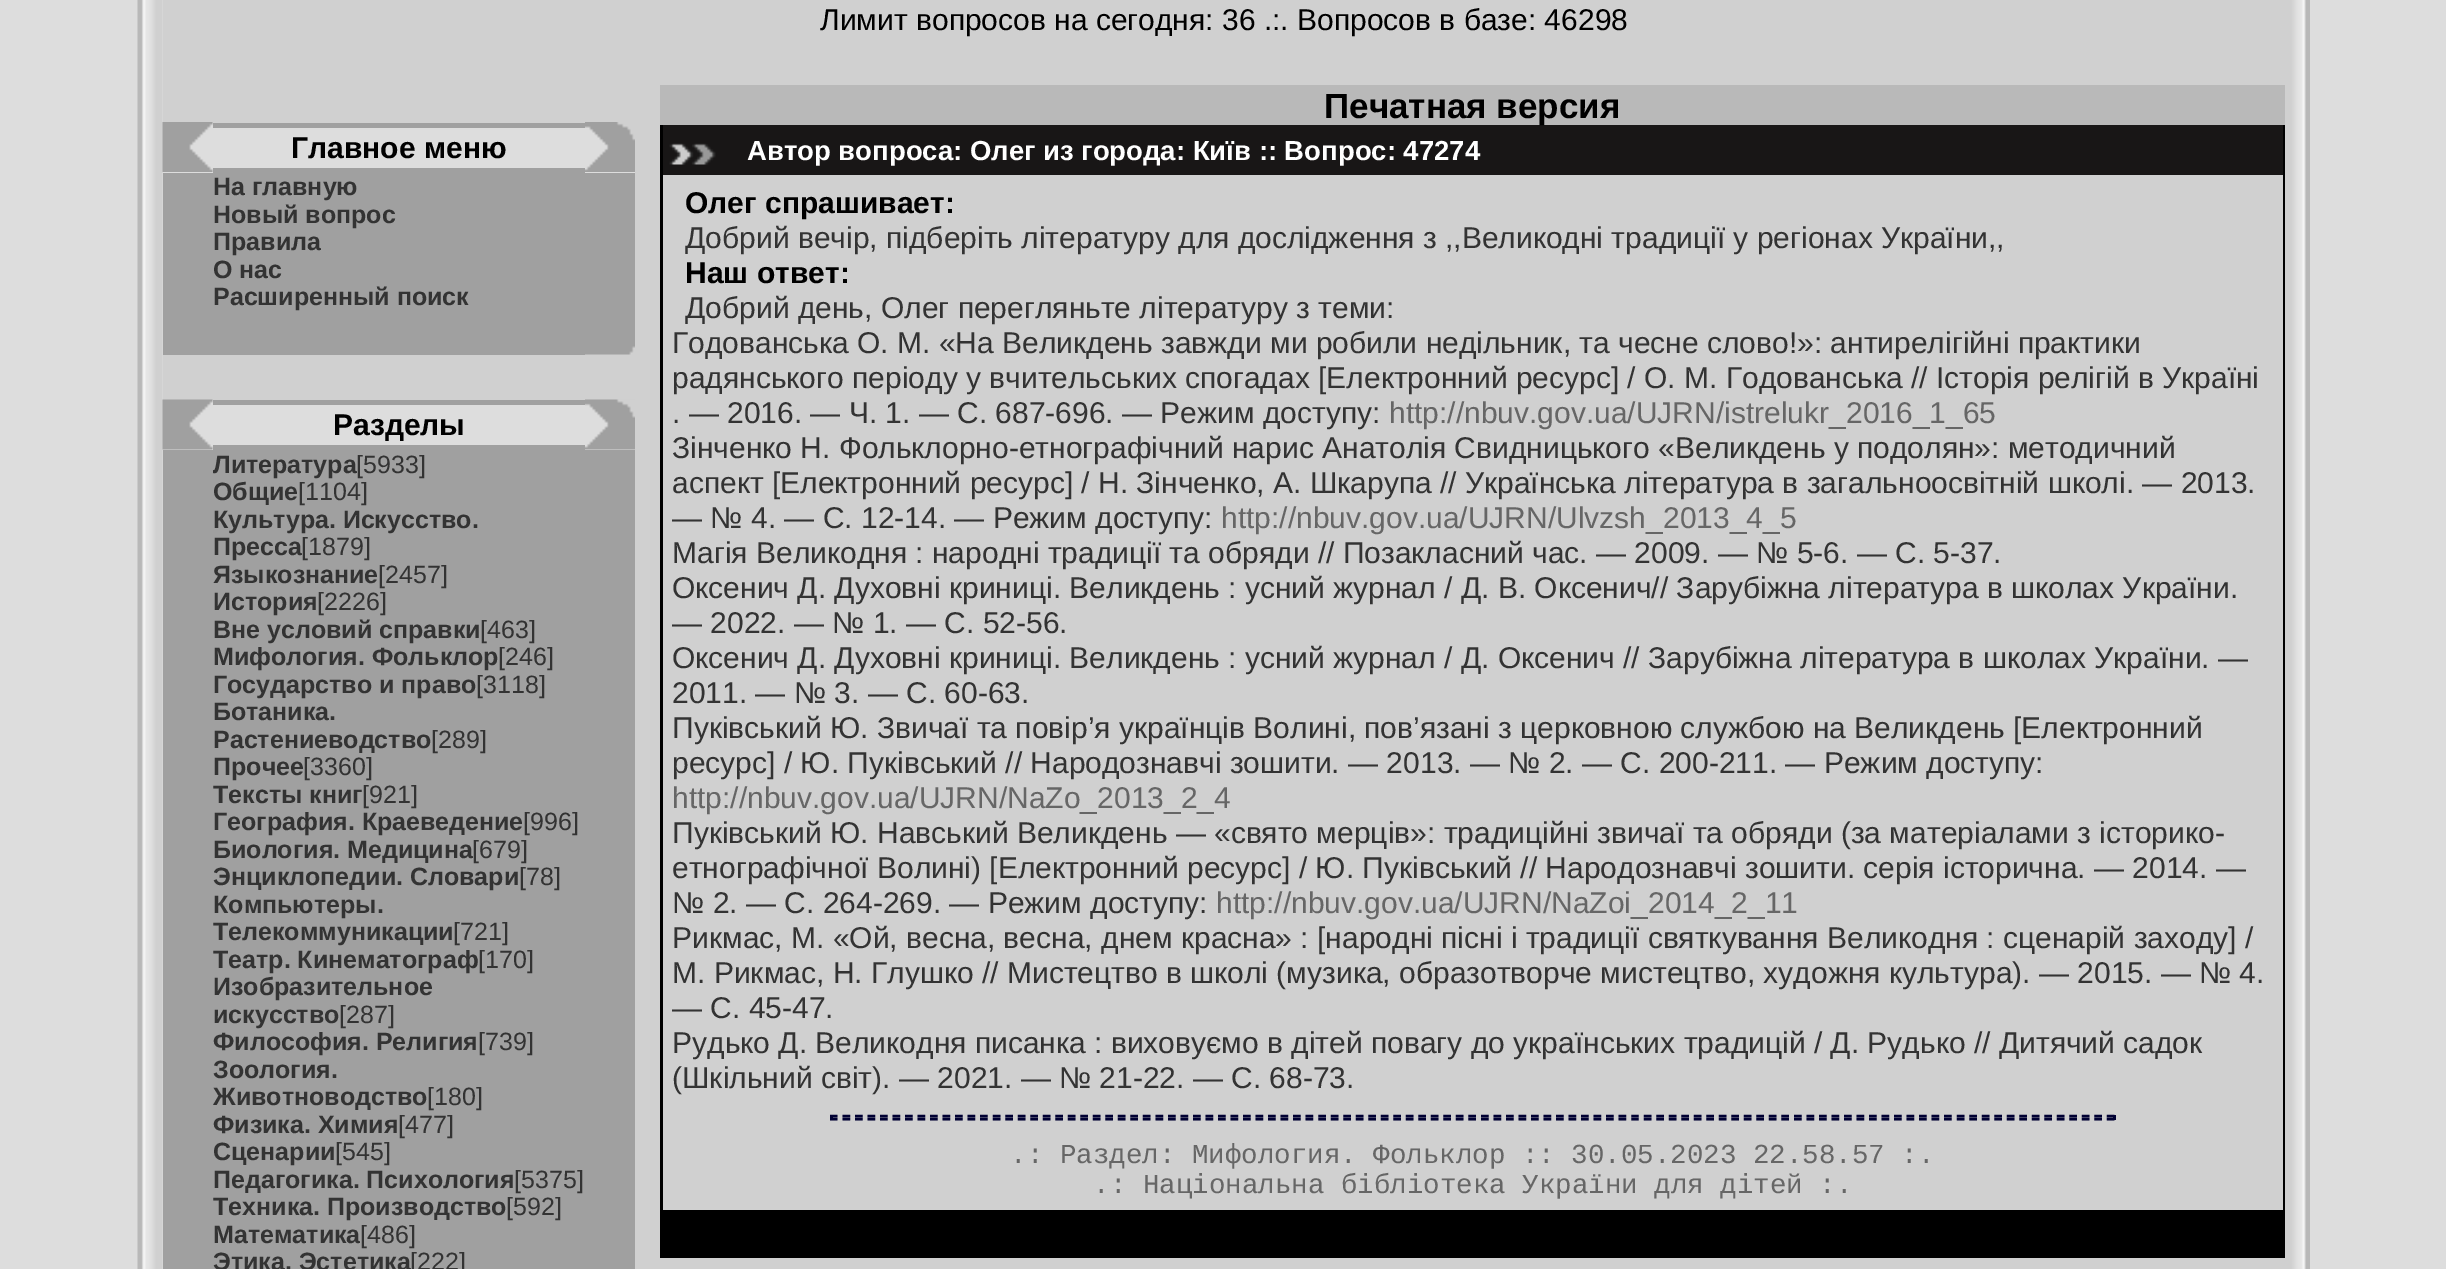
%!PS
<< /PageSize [2446 1269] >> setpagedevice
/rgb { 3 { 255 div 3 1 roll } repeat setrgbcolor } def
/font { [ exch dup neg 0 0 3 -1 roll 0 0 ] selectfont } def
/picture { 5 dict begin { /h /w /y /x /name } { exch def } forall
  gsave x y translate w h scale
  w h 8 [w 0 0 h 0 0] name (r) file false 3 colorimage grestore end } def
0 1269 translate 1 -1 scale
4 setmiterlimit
221 221 221 rgb
0 0 2446 1269 rectfill
(img/1.rgb) 137 0 26 1269 picture
208 208 208 rgb
163 0 2122 1269 rectfill
221 221 221 rgb
163 123 472 50 rectfill
(img/2.rgb) 162 122 51 50 picture
160 160 160 rgb
213 123 372 5 rectfill
213 168 372 5 rectfill
(img/3.rgb) 585 122 50 50 picture
163 173 472 137 rectfill
163 310 422 45 rectfill
(img/4.rgb) 585 310 50 45 picture
221 221 221 rgb
163 400 472 50 rectfill
(img/5.rgb) 162 399 51 51 picture
160 160 160 rgb
213 400 372 5 rectfill
213 445 372 5 rectfill
(img/6.rgb) 585 399 50 51 picture
[
  [163 450 472 819 160 160 160]
  [660 85 1625 40 185 185 185]
  [2283 125 2 1133 0 0 0]
  [660 125 3 1133 0 0 0]
  [663 125 1620 50 24 22 22]
] { aload pop rgb rectfill } forall
(img/7.rgb) 669 143 47 22 picture
0 0 51 rgb
2.5 setlinewidth
[7.5 5.02] 0 setdash
830 1116 moveto 2115 1116 lineto stroke
2113 1115 3 5 rectfill
830 1119 moveto 2115 1119 lineto stroke
830 1115 3 5 rectfill
0 0 0 rgb
663 1210 1620 48 rectfill
(img/8.rgb) 2285 0 25 1269 picture
/LiberationSans-Regular 30 font
820 30 moveto (Лимит вопросов на сегодня: 36 .:. Вопросов в базе: 46298) show
/LiberationSans-Bold 30 font
291 158 moveto (Главное меню) show
/LiberationSans-Bold 25 font
51 51 51 rgb
[
  [(На главную) 213 195]
  [(Новый вопрос) 213 223]
  [(Правила) 213 250]
  [(О нас) 213 278]
  [(Расширенный поиск) 213 305]
] { aload pop moveto show } forall
/LiberationSans-Bold 30 font
0 0 0 rgb
333 435 moveto (Разделы) show
/LiberationSans-Bold 25 font
51 51 51 rgb
213 473 moveto (Литература) show
/LiberationSans-Regular 25 font
356 473 moveto ([5933]) show
/LiberationSans-Bold 25 font
213 500 moveto (Общие) show
/LiberationSans-Regular 25 font
298 500 moveto ([1104]) show
/LiberationSans-Bold 25 font
213 528 moveto (Культура. Искусство.) show
213 555 moveto (Пресса) show
/LiberationSans-Regular 25 font
301 555 moveto ([1879]) show
/LiberationSans-Bold 25 font
213 583 moveto (Языкознание) show
/LiberationSans-Regular 25 font
378 583 moveto ([2457]) show
/LiberationSans-Bold 25 font
213 610 moveto (История) show
/LiberationSans-Regular 25 font
317 610 moveto ([2226]) show
/LiberationSans-Bold 25 font
213 638 moveto (Вне условий справки) show
/LiberationSans-Regular 25 font
480 638 moveto ([463]) show
/LiberationSans-Bold 25 font
213 665 moveto (Мифология. Фольклор) show
/LiberationSans-Regular 25 font
498 665 moveto ([246]) show
/LiberationSans-Bold 25 font
213 693 moveto (Государство и право) show
/LiberationSans-Regular 25 font
476 693 moveto ([3118]) show
/LiberationSans-Bold 25 font
213 720 moveto (Ботаника.) show
213 748 moveto (Растениеводство) show
/LiberationSans-Regular 25 font
431 748 moveto ([289]) show
/LiberationSans-Bold 25 font
213 775 moveto (Прочее) show
/LiberationSans-Regular 25 font
303 775 moveto ([3360]) show
/LiberationSans-Bold 25 font
213 803 moveto (Тексты книг) show
/LiberationSans-Regular 25 font
362 803 moveto ([921]) show
/LiberationSans-Bold 25 font
213 830 moveto (География. Краеведение) show
/LiberationSans-Regular 25 font
523 830 moveto ([996]) show
/LiberationSans-Bold 25 font
213 858 moveto (Биология. Медицина) show
/LiberationSans-Regular 25 font
472 858 moveto ([679]) show
/LiberationSans-Bold 25 font
213 885 moveto (Энциклопедии. Словари) show
/LiberationSans-Regular 25 font
519 885 moveto ([78]) show
/LiberationSans-Bold 25 font
213 913 moveto (Компьютеры.) show
213 940 moveto (Телекоммуникации) show
/LiberationSans-Regular 25 font
453 940 moveto ([721]) show
/LiberationSans-Bold 25 font
213 968 moveto (Театр. Кинематограф) show
/LiberationSans-Regular 25 font
478 968 moveto ([170]) show
/LiberationSans-Bold 25 font
213 995 moveto (Изобразительное) show
213 1023 moveto (искусство) show
/LiberationSans-Regular 25 font
339 1023 moveto ([287]) show
/LiberationSans-Bold 25 font
213 1050 moveto (Философия. Религия) show
/LiberationSans-Regular 25 font
478 1050 moveto ([739]) show
/LiberationSans-Bold 25 font
213 1078 moveto (Зоология.) show
213 1105 moveto (Животноводство) show
/LiberationSans-Regular 25 font
427 1105 moveto ([180]) show
/LiberationSans-Bold 25 font
213 1133 moveto (Физика. Химия) show
/LiberationSans-Regular 25 font
398 1133 moveto ([477]) show
/LiberationSans-Bold 25 font
213 1160 moveto (Сценарии) show
/LiberationSans-Regular 25 font
335 1160 moveto ([545]) show
/LiberationSans-Bold 25 font
213 1188 moveto (Педагогика. Психология) show
/LiberationSans-Regular 25 font
514 1188 moveto ([5375]) show
/LiberationSans-Bold 25 font
213 1215 moveto (Техника. Производство) show
/LiberationSans-Regular 25 font
506 1215 moveto ([592]) show
/LiberationSans-Bold 25 font
213 1243 moveto (Математика) show
/LiberationSans-Regular 25 font
360 1243 moveto ([486]) show
/LiberationSans-Bold 25 font
213 1270 moveto (Этика. Эстетика) show
/LiberationSans-Regular 25 font
410 1270 moveto ([222]) show
/LiberationSans-Bold 35 font
0 0 0 rgb
1324 118 moveto (Печатная версия) show
/LiberationSans-Bold 27.5 font
255 255 255 rgb
747 160 moveto (Автор вопроса: Олег из города: Київ :: Вопрос: 47274) show
/LiberationSans-Bold 30 font
0 0 0 rgb
685 213 moveto (Олег спрашивает:) show
/LiberationSans-Regular 30 font
51 51 51 rgb
685 248 moveto (Добрий вечір, підберіть літературу для дослідження з ,,Великодні традиції у регіонах України,,) show
/LiberationSans-Bold 30 font
0 0 0 rgb
685 283 moveto (Наш ответ:) show
/LiberationSans-Regular 30 font
51 51 51 rgb
[
  [(Добрий день, Олег перегляньте літературу з теми:) 685 318]
  [(Годованська О. М. «На Великдень завжди ми робили недільник, та чесне слово!»: антирелігійні практики) 672 353]
  [(радянського періоду у вчительських спогадах [Електронний ресурс] / О. М. Годованська // Історія релігій в Україні) 672 388]
  [(. — 2016. — Ч. 1. — С. 687-696. — Режим доступу:) 672 423]
] { aload pop moveto show } forall
102 102 102 rgb
1389 423 moveto (http://nbuv.gov.ua/UJRN/istrelukr_2016_1_65) show
51 51 51 rgb
[
  [(Зінченко Н. Фольклорно-етнографічний нарис Анатолія Свидницького «Великдень у подолян»: методичний) 672 458]
  [(аспект [Електронний ресурс] / Н. Зінченко, А. Шкарупа // Українська література в загальноосвітній школі. — 2013.) 672 493]
  [(— № 4. — С. 12-14. — Режим доступу:) 672 528]
] { aload pop moveto show } forall
102 102 102 rgb
1221 528 moveto (http://nbuv.gov.ua/UJRN/Ulvzsh_2013_4_5) show
51 51 51 rgb
[
  [(Магія Великодня : народні традиції та обряди // Позакласний час. — 2009. — № 5-6. — С. 5-37.) 672 563]
  [(Оксенич Д. Духовні криниці. Великдень : усний журнал / Д. В. Оксенич// Зарубіжна література в школах України.) 672 598]
  [(— 2022. — № 1. — С. 52-56.) 672 633]
  [(Оксенич Д. Духовні криниці. Великдень : усний журнал / Д. Оксенич // Зарубіжна література в школах України. —) 672 668]
  [(2011. — № 3. — С. 60-63.) 672 703]
  [(Пуківський Ю. Звичаї та повір’я українців Волині, пов’язані з церковною службою на Великдень [Електронний) 672 738]
  [(ресурс] / Ю. Пуківський // Народознавчі зошити. — 2013. — № 2. — С. 200-211. — Режим доступу:) 672 773]
] { aload pop moveto show } forall
102 102 102 rgb
672 808 moveto (http://nbuv.gov.ua/UJRN/NaZo_2013_2_4) show
51 51 51 rgb
[
  [(Пуківський Ю. Навський Великдень — «свято мерців»: традиційні звичаї та обряди \(за матеріалами з історико-) 672 843]
  [(етнографічної Волині\) [Електронний ресурс] / Ю. Пуківський // Народознавчі зошити. серія історична. — 2014. —) 672 878]
  [(№ 2. — С. 264-269. — Режим доступу:) 672 913]
] { aload pop moveto show } forall
102 102 102 rgb
1216 913 moveto (http://nbuv.gov.ua/UJRN/NaZoi_2014_2_11) show
51 51 51 rgb
[
  [(Рикмас, М. «Ой, весна, весна, днем красна» : [народні пісні і традиції святкування Великодня : сценарій заходу] /) 672 948]
  [(М. Рикмас, Н. Глушко // Мистецтво в школі \(музика, образотворче мистецтво, художня культура\). — 2015. — № 4.) 672 983]
  [(— С. 45-47.) 672 1018]
  [(Рудько Д. Великодня писанка : виховуємо в дітей повагу до українських традицій / Д. Рудько // Дитячий садок) 672 1053]
  [(\(Шкільний світ\). — 2021. — № 21-22. — С. 68-73.) 672 1088]
] { aload pop moveto show } forall
/LiberationMono-Regular 27.5 font
102 102 102 rgb
1010 1163 moveto (.: Раздел: Мифология. Фольклор :: 30.05.2023 22.58.57 :.) show
1093 1193 moveto (.: Національна бібліотека України для дітей :.) show
showpage
